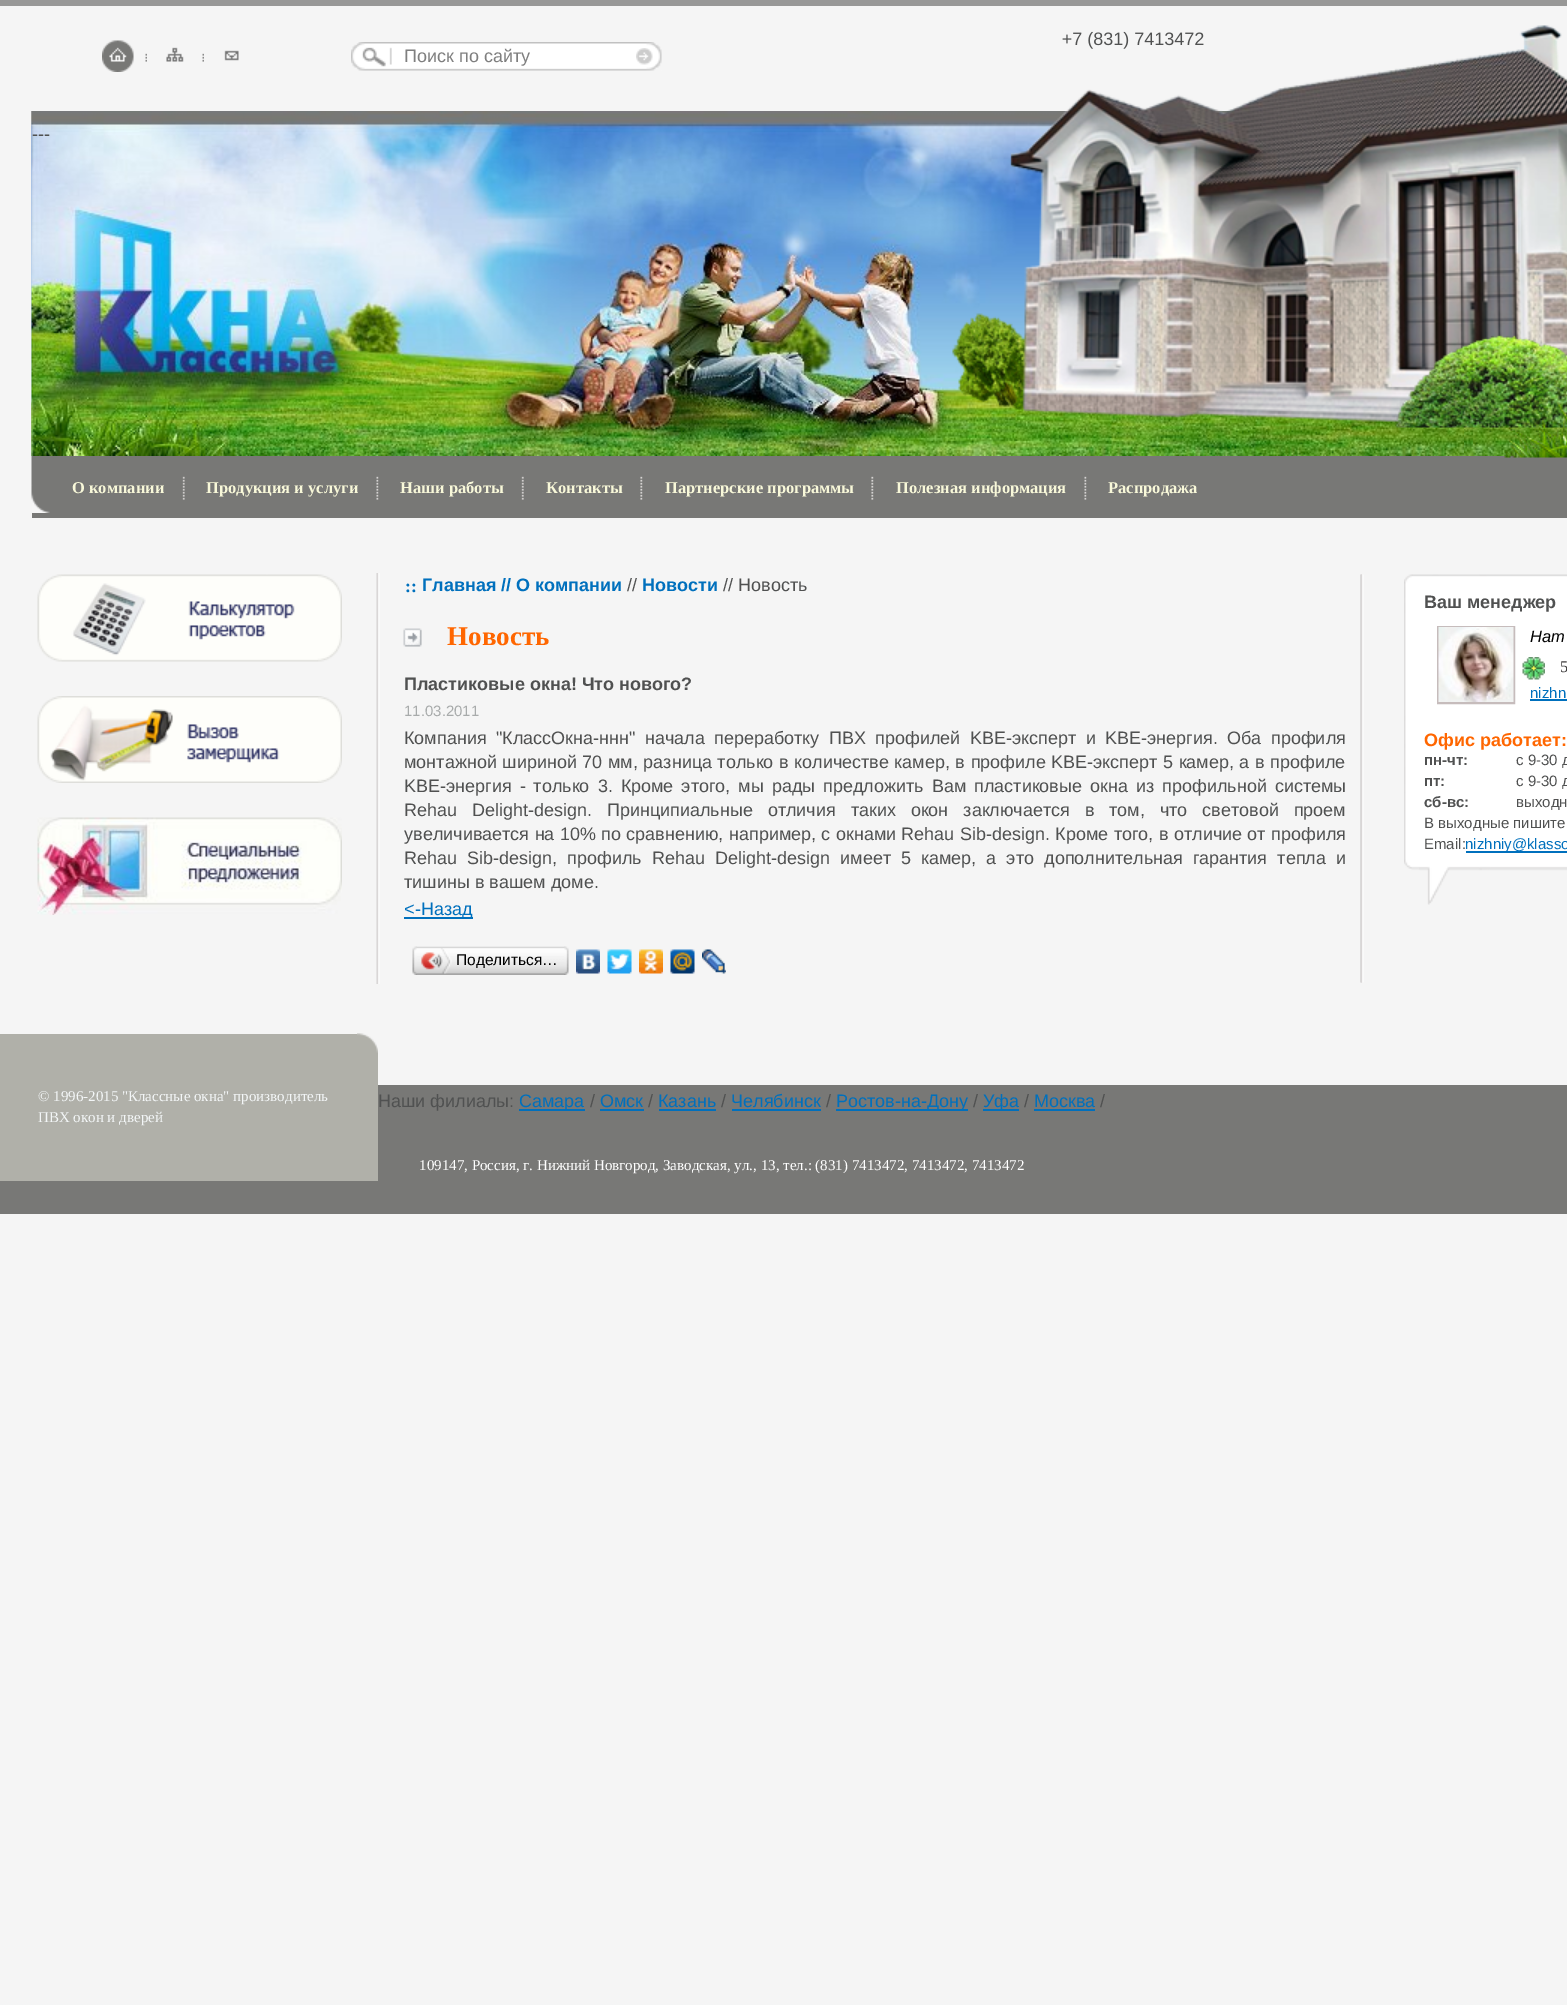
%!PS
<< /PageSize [1567 2005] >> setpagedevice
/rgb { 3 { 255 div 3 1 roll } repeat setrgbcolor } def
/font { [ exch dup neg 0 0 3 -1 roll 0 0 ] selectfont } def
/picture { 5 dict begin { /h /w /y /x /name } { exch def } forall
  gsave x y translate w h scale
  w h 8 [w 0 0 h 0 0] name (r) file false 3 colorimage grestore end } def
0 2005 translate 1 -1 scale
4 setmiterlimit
245 245 245 rgb
0 0 1567 2005 rectfill
152 152 151 rgb
0 0 1567 6 rectfill
(img/2.rgb) 102 40 32 32 picture
(img/3.rgb) 145 53 2 9 picture
(img/4.rgb) 166 47 18 15 picture
(img/3.rgb) 202 53 2 9 picture
(img/5.rgb) 224 50 15 11 picture
(img/6.rgb) 351 42 285 29 picture
(img/7.rgb) 636 42 26 29 picture
(img/8.rgb) 636 48 17 17 picture
(img/9.rgb) 31 111 1536 345 picture
(img/10.rgb) 31 111 1433 345 picture
120 120 118 rgb
32 456 1535 62 rectfill
(img/11.rgb) 31 456 19 57 picture
(img/12.rgb) 182 476 3 24 picture
(img/13.rgb) 376 476 3 24 picture
(img/14.rgb) 521 476 3 24 picture
(img/15.rgb) 640 476 3 24 picture
(img/15.rgb) 871 476 3 24 picture
(img/13.rgb) 1084 476 3 24 picture
(img/16.rgb) 376 573 4 411 picture
(img/17.rgb) 1360 574 4 409 picture
(img/18.rgb) 1360 574 2 409 picture
(img/19.rgb) 37 574 305 88 picture
(img/20.rgb) 37 696 305 87 picture
(img/21.rgb) 37 817 305 98 picture
(img/22.rgb) 403 628 19 19 picture
0 112 189 rgb
404 917 69 2 rectfill
(img/23.rgb) 417 946 147 29 picture
(img/24.rgb) 412 946 5 29 picture
(img/25.rgb) 421 948 31 26 picture
(img/26.rgb) 564 946 5 29 picture
(img/27.rgb) 576 949 24 25 picture
(img/28.rgb) 607 949 25 25 picture
(img/29.rgb) 639 949 24 25 picture
(img/30.rgb) 670 949 25 25 picture
(img/31.rgb) 702 949 24 25 picture
(img/32.rgb) 1404 574 163 331 picture
198 188 188 rgb
2 setlinewidth
1438 627 76 76 rectstroke
(img/33.rgb) 1438 627 76 75 picture
(img/34.rgb) 1522 657 23 23 picture
[
  [1530 699 37 2 0 112 189]
  [1466 851 101 2 0 112 189]
  [0 1085 1567 129 120 120 118]
  [0 1034 378 147 176 176 169]
] { aload pop rgb rectfill } forall
(img/35.rgb) 357 1033 21 20 picture
[
  [519 1109 66 2 0 112 189]
  [600 1109 44 2 0 112 189]
  [659 1109 57 2 0 112 189]
  [732 1109 89 2 0 112 189]
  [836 1109 132 2 0 112 189]
  [983 1109 36 2 0 112 189]
  [1034 1109 61 2 0 112 189]
] { aload pop rgb rectfill } forall
/LiberationSans-Regular 18 font
127 127 127 rgb
404 62 moveto (Поиск по сайту) show
80 81 81 rgb
1062 45 moveto (+7 \(831\) 7413472) show
(img/1.rgb) 952 25 615 433 picture
32 140 moveto (---) show
/LiberationSerif-Bold 16.5 font
248 248 217 rgb
[
  [(О компании) 72 493]
  [(Продукция и услуги) 206 493]
  [(Наши работы) 400 493]
  [(Контакты) 546 493]
  [(Партнерские программы) 665 493]
  [(Полезная информация) 896 493]
  [(Распродажа) 1108 493]
] { aload pop moveto show } forall
/LiberationSerif-Bold 18 font
0 112 189 rgb
405 592 moveto (::) show
/LiberationSans-Bold 18 font
422 591 moveto (Главная // О компании) show
/LiberationSans-Regular 18 font
80 81 81 rgb
627 591 moveto (//) show
/LiberationSans-Bold 18 font
0 112 189 rgb
642 591 moveto (Новости) show
/LiberationSans-Regular 18 font
80 81 81 rgb
723 591 moveto (// Новость) show
/LiberationSerif-Bold 27 font
255 102 0 rgb
447 645 moveto (Новость) show
/LiberationSans-Bold 18 font
80 81 81 rgb
404 690 moveto (Пластиковые окна! Что нового?) show
/LiberationSans-Regular 15 font
168 171 171 rgb
404 716 moveto (11.03.2011) show
/LiberationSans-Regular 18 font
80 81 81 rgb
404 744 moveto 4.5 0 32 (Компания "КлассОкна-ннн" начала переработку ПВХ профилей KBE-эксперт и KBE-энергия. Оба профиля) widthshow
404 768 moveto 0.6 0 32 (монтажной шириной 70 мм, разница только в количестве камер, в профиле KBE-эксперт 5 камер, а в профиле) widthshow
404 792 moveto 3 0 32 (KBE-энергия - только 3. Кроме этого, мы рады предложить Вам пластиковые окна из профильной системы) widthshow
404 816 moveto 9.9 0 32 (Rehau Delight-design. Принципиальные отличия таких окон заключается в том, что световой проем) widthshow
404 840 moveto 0.4 0 32 (увеличивается на 10% по сравнению, например, с окнами Rehau Sib-design. Кроме того, в отличие от профиля) widthshow
404 864 moveto 5.1 0 32 (Rehau Sib-design, профиль Rehau Delight-design имеет 5 камер, а это дополнительная гарантия тепла и) widthshow
404 888 moveto (тишины в вашем доме.) show
0 112 189 rgb
404 915 moveto (<-Назад) show
/LiberationSans-Regular 15.5 font
0 0 0 rgb
456 965 moveto (Поделиться…) show
/LiberationSans-Bold 18 font
80 81 81 rgb
1424 608 moveto (Ваш менеджер) show
/LiberationSans-Italic 16.5 font
0 0 0 rgb
1530 642 moveto (Нат) show
/LiberationSerif-Regular 16.5 font
62 60 60 rgb
1560 672 moveto (5) show
/LiberationSans-Regular 15 font
0 112 189 rgb
1530 698 moveto (nizhn) show
/LiberationSans-Bold 18 font
255 102 0 rgb
1424 746 moveto (Офис работает:) show
/LiberationSans-Bold 15 font
80 81 81 rgb
1424 765 moveto (пн-чт:) show
/LiberationSans-Regular 15 font
1516 765 moveto (с 9-30 д) show
/LiberationSans-Bold 15 font
1424 786 moveto (пт:) show
/LiberationSans-Regular 15 font
1516 786 moveto (с 9-30 д) show
/LiberationSans-Bold 15 font
1424 807 moveto (сб-вс:) show
/LiberationSans-Regular 15 font
[
  [(выходн) 1516 807]
  [(В выходные пишите) 1424 828]
  [(Email:) 1424 849]
] { aload pop moveto show } forall
0 112 189 rgb
1465 849 moveto (nizhniy@klasso) show
/LiberationSerif-Regular 15 font
243 246 247 rgb
38 1101 moveto (© 1996-2015 "Классные окна" производитель) show
38 1122 moveto (ПВХ окон и дверей) show
/LiberationSans-Regular 18 font
80 81 81 rgb
378 1107 moveto (Наши филиалы:) show
0 112 189 rgb
519 1107 moveto (Самара) show
80 81 81 rgb
590 1107 moveto (/) show
0 112 189 rgb
600 1107 moveto (Омск) show
80 81 81 rgb
648 1107 moveto (/) show
0 112 189 rgb
658 1107 moveto (Казань) show
80 81 81 rgb
721 1107 moveto (/) show
0 112 189 rgb
731 1107 moveto (Челябинск) show
80 81 81 rgb
826 1107 moveto (/) show
0 112 189 rgb
836 1107 moveto (Ростов-на-Дону) show
80 81 81 rgb
973 1107 moveto (/) show
0 112 189 rgb
983 1107 moveto (Уфа) show
80 81 81 rgb
1024 1107 moveto (/) show
0 112 189 rgb
1034 1107 moveto (Москва) show
80 81 81 rgb
1100 1107 moveto (/) show
/LiberationSerif-Regular 15 font
255 255 255 rgb
419 1170 moveto (109147, Россия, г. Нижний Новгород, Заводская, ул., 13, тел.: \(831\) 7413472, 7413472, 7413472) show
showpage
